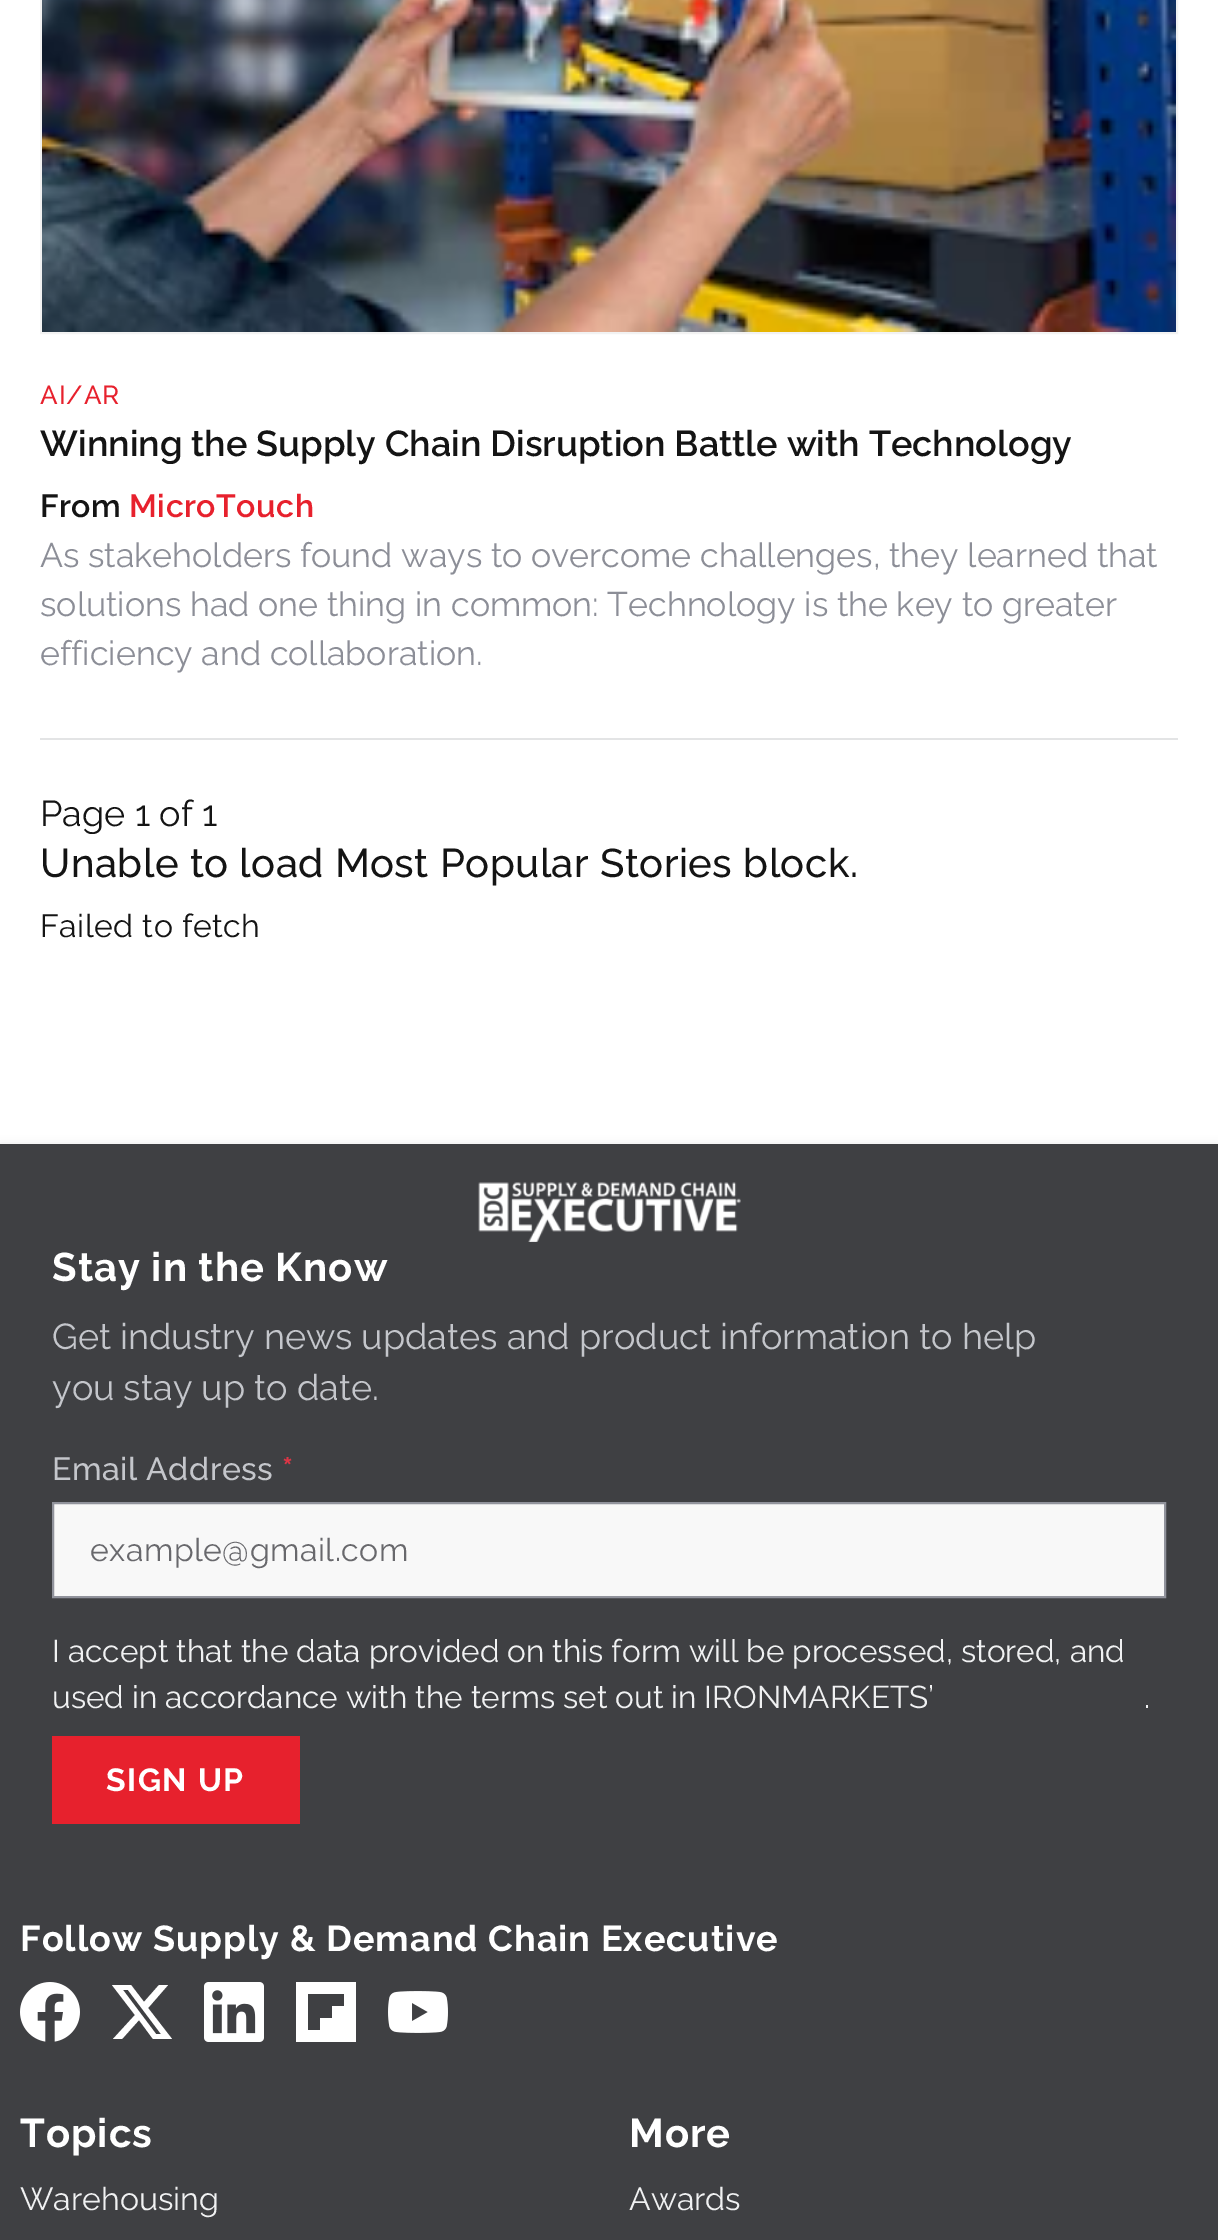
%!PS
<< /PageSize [1218 2240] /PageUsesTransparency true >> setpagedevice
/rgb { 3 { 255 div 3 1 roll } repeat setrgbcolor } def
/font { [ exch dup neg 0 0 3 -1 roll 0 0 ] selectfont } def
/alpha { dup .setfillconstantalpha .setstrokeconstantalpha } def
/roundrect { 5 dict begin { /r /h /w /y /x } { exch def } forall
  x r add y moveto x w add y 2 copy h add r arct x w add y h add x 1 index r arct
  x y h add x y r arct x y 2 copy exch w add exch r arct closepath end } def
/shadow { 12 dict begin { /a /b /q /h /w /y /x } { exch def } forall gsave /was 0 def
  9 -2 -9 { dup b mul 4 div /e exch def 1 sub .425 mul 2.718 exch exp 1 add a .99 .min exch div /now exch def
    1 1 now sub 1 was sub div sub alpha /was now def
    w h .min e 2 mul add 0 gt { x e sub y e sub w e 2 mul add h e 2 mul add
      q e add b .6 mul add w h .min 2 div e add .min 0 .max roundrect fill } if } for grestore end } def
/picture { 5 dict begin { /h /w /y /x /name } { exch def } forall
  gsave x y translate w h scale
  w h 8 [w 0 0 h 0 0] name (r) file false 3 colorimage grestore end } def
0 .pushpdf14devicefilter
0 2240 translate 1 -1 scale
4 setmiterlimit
255 255 255 rgb
0 0 1218 2240 rectfill
227 228 229 rgb
40 738 1138 2 rectfill
242 242 242 rgb
2 setlinewidth
41 -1 1136 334 rectstroke
(img/1.rgb) 42 0 1134 332 picture
0 0 0 rgb
0 1146 1218 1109 0 5 0.12 shadow
63 64 67 rgb
0 1144 1218 1096 rectfill
(img/2.rgb) 478 1182 263 60 picture
248 248 248 rgb
53 1503 moveto 1165 1503 lineto 1165 1597 lineto 53 1597 lineto closepath gsave fill grestore
145 147 156 rgb
stroke
231 33 45 rgb
52 1736 248 88 rectfill
(img/3.rgb) 20 1982 60 60 picture
255 255 255 rgb
159 1985 moveto 168 1985 lineto 148 2008 lineto 172 2039 lineto 153 2039 lineto 139 2020 lineto 122 2039 lineto 113 2039 lineto 135 2015 lineto 112 1985 lineto 131 1985 lineto 144 2002 lineto closepath 156 2034 moveto 161 2034 lineto 128 1990 lineto 123 1990 lineto closepath fill
(img/4.rgb) 204 1982 60 60 picture
296 1982 moveto 296 2042 lineto 356 2042 lineto 356 1982 lineto closepath 344 2006 moveto 332 2006 lineto 332 2018 lineto 320 2018 lineto 320 2030 lineto 308 2030 lineto 308 1994 lineto 344 1994 lineto closepath fill
(img/5.rgb) 388 1991 60 42 picture
/Raleway-Medium 26 font
231 33 45 rgb
40 404 moveto 1 0 (AI/AR) ashow
/Raleway-SemiBold 36 font
20 20 20 rgb
40 456 moveto (Winning the Supply Chain Disruption Battle with Technology) show
/Raleway-SemiBold 32 font
40 517 moveto 0.5 0 (From) ashow
231 33 45 rgb
129 517 moveto 0.5 0 (MicroTouch) ashow
/Raleway-Regular 34 font
140 142 151 rgb
[
  [(As stakeholders found ways to overcome challenges, they learned that) 40 567]
  [(solutions had one thing in common: Technology is the key to greater) 40 616]
  [(efficiency and collaboration.) 40 665]
] { aload pop moveto show } forall
/Raleway-Regular 36 font
20 20 20 rgb
40 826 moveto (Page 1 of 1) show
/Raleway-Medium 40 font
40 877 moveto 0.5 0 (Unable to load Most Popular Stories block.) ashow
/Raleway-Regular 32 font
40 937 moveto 0.5 0 (Failed to fetch) ashow
/Raleway-Bold 40 font
255 255 255 rgb
52 1281 moveto 1 0 (Stay in the Know) ashow
/Raleway-Regular 36 font
196 198 203 rgb
52 1349 moveto (Get industry news updates and product information to help) show
52 1400 moveto (you stay up to date.) show
/Raleway-Medium 32 font
52 1480 moveto 0.5 0 (Email Address) ashow
/Raleway-Bold 32 font
220 53 69 rgb
282 1480 moveto 0.5 0 (*) ashow
/Raleway-Regular 32 font
104 104 108 rgb
90 1561 moveto 0.5 0 (example@gmail.com) ashow
/Raleway-Regular 31.5 font
240 241 242 rgb
[
  [(I accept that the data provided on this form will be processed, stored, and) 52 1662]
  [(used in accordance with the terms set out in IRONMARKETS’) 52 1708]
  [(.) 1144 1708]
] { aload pop moveto show } forall
/Raleway-Bold 32 font
255 255 255 rgb
106 1791 moveto 1.5 0 (SIGN UP) ashow
/Raleway-Bold 36 font
20 1951 moveto 1 0 (Follow Supply & Demand Chain Executive) ashow
/Raleway-Bold 40 font
20 2147 moveto 1 0 (Topics) ashow
/Raleway-Regular 32 font
240 241 242 rgb
20 2210 moveto (Warehousing) show
/Raleway-Bold 40 font
255 255 255 rgb
629 2147 moveto 1 0 (More) ashow
/Raleway-Regular 32 font
240 241 242 rgb
629 2210 moveto (Awards) show
.poppdf14devicefilter showpage
